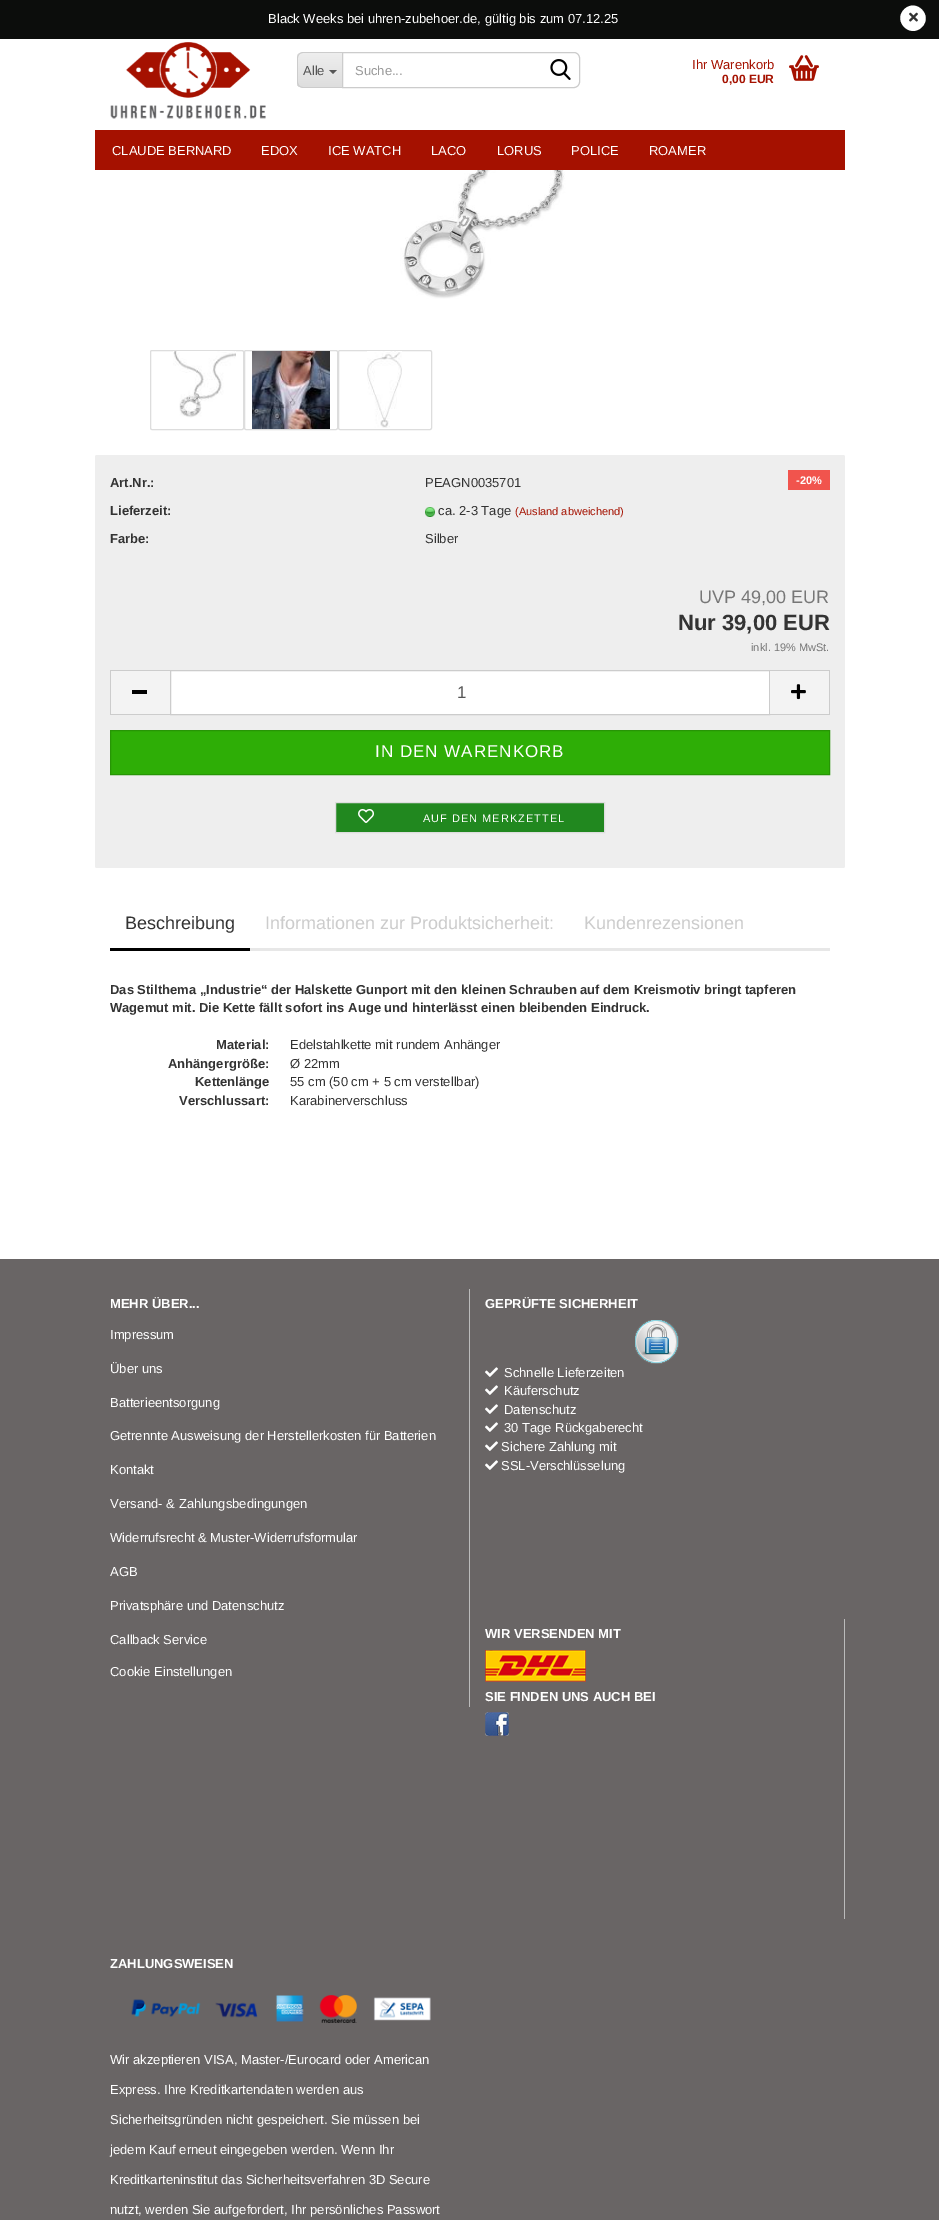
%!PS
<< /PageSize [939 2220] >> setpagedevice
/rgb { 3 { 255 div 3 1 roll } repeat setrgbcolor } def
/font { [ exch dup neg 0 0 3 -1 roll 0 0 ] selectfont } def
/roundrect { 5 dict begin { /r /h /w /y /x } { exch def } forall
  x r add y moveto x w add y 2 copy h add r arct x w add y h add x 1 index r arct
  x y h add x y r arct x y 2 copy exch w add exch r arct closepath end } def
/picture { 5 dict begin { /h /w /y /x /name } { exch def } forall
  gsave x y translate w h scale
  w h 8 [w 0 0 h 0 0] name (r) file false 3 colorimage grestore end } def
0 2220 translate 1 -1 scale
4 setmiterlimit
255 255 255 rgb
0 0 939 2220 rectfill
12 13 12 rgb
0 0 939 39 rectfill
255 255 255 rgb
904 9.5 moveto 916 -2.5 933.5 15.5 922 27 curveto 910 39 892.5 21 904 9.5 curveto closepath fill
(img/1.rgb) 909 12 9 10 picture
(img/2.rgb) 110 42 156 77 picture
gsave
303 52 moveto 342 52 lineto 342 88 lineto 303 88 lineto 299.5 88 297 85.5 297 82 curveto 297 58 lineto 297 54.5 299.5 52 303 52 curveto closepath clip newpath
gsave 297 53 moveto 342 53 lineto 342 87 lineto 297 87 lineto closepath clip newpath
<< /ShadingType 2 /ColorSpace /DeviceRGB /Coords [320 53 320 87] /Extend [true true] /Function << /FunctionType 2 /Domain [0 1] /C0 [0.933 0.933 0.933] /C1 [0.871 0.871 0.871] /N 1 >> >> shfill grestore
grestore
204 204 204 rgb
303 52 moveto 342 52 lineto 342 88 lineto 303 88 lineto 300 88 297 85 297 82 curveto 297 58 lineto 297 55 300 52 303 52 curveto closepath 303 53 moveto 342 53 lineto 342 87 lineto 303 87 lineto 300 87 298 85 298 82 curveto 298 58 lineto 298 55 300 53 303 53 curveto closepath eofill
85 85 85 rgb
329 70 moveto 337 70 lineto 333 74 lineto closepath fill
204 204 204 rgb
342.5 52.5 moveto 574 52.5 lineto 577 52.5 579.5 55 579.5 58 curveto 579.5 82 lineto 579.5 85 577 87.5 574 87.5 curveto 342.5 87.5 lineto closepath stroke
(img/3.rgb) 550 59 21 21 picture
(img/4.rgb) 789 55 30 26 picture
165 17 0 rgb
95 130 750 40 rectfill
(img/5.rgb) 379 170 241 129 picture
221 221 221 rgb
150.5 350.5 93 79 1.5 roundrect stroke
(img/6.rgb) 173 351 63 67 picture
244.5 350.5 93 79 1.5 roundrect stroke
(img/7.rgb) 252 351 78 78 picture
338.5 350.5 93 79 1.5 roundrect stroke
(img/8.rgb) 367 351 35 77 picture
238 238 238 rgb
95 455 750 413 2 roundrect fill
241 84 77 rgb
788 470 42 20 rectfill
(img/9.rgb) 425 507 10 10 picture
[
  [111 671 59 43 243 243 243]
  [110 670 60 1 204 204 204]
  [110 714 60 1 204 204 204]
  [110 670 1 45 204 204 204]
  [132 690 15 4 0 0 0]
] { aload pop rgb rectfill } forall
255 255 255 rgb
170.5 670.5 moveto 769.5 670.5 lineto 769.5 714.5 lineto 170.5 714.5 lineto closepath gsave fill grestore
204 204 204 rgb
stroke
[
  [770 671 59 43 243 243 243]
  [770 670 60 1 204 204 204]
  [829 670 1 45 204 204 204]
  [770 714 60 1 204 204 204]
] { aload pop rgb rectfill } forall
(img/10.rgb) 791 684 15 16 picture
46 174 6 rgb
110.5 730.5 moveto 829.5 730.5 lineto 829.5 774.5 lineto 110.5 774.5 lineto closepath gsave fill grestore
39 149 5 rgb
stroke
33 136 31 rgb
335.5 802.5 moveto 604.5 802.5 lineto 604.5 832.5 lineto 335.5 832.5 lineto closepath gsave fill grestore
221 221 221 rgb
stroke
(img/11.rgb) 358 809 16 14 picture
[
  [250 948 580 3 231 231 231]
  [110 948 140 3 0 0 0]
  [0 1259 939 961 105 101 101]
  [469 1289 1 418 187 187 187]
] { aload pop rgb rectfill } forall
(img/12.rgb) 635 1320 44 44 picture
(img/13.rgb) 485 1367 13 10 picture
(img/13.rgb) 485 1385 13 10 picture
(img/13.rgb) 485 1404 13 10 picture
(img/13.rgb) 485 1422 13 10 picture
(img/13.rgb) 485 1441 13 10 picture
(img/13.rgb) 485 1460 13 10 picture
844 1619 1 300 rectfill
(img/14.rgb) 485 1650 101 32 picture
(img/15.rgb) 485 1712 24 24 picture
(img/16.rgb) 131 1995 300 28 picture
/LiberationSans-Regular 13 font
255 255 255 rgb
268 23 moveto (Black Weeks bei uhren-zubehoer.de, gültig bis zum 07.12.25) show
85 85 85 rgb
303 75 moveto (Alle) show
153 153 153 rgb
355 75 moveto (Suche...) show
165 17 0 rgb
692 69 moveto (Ihr Warenkorb) show
/LiberationSans-Bold 12 font
722 83 moveto (0,00 EUR) show
/LiberationSans-Regular 13 font
255 255 255 rgb
[
  [(CLAUDE BERNARD) 112 155]
  [(EDOX) 261 155]
  [(ICE WATCH) 328 155]
  [(LACO) 431 155]
  [(LORUS) 497 155]
  [(POLICE) 571 155]
  [(ROAMER) 649 155]
] { aload pop moveto show } forall
/LiberationSans-Bold 11 font
796 484 moveto (-20%) show
/LiberationSans-Bold 13 font
51 51 51 rgb
110 487 moveto (Art.Nr.:) show
/LiberationSans-Regular 13 font
425 487 moveto (PEAGN0035701) show
/LiberationSans-Bold 13 font
110 515 moveto (Lieferzeit:) show
/LiberationSans-Regular 13 font
438 515 moveto (ca. 2-3 Tage) show
/LiberationSans-Regular 11 font
165 17 0 rgb
515 515 moveto (\(Ausland abweichend\)) show
/LiberationSans-Bold 13 font
51 51 51 rgb
110 543 moveto (Farbe:) show
/LiberationSans-Regular 13 font
425 543 moveto (Silber) show
/LiberationSans-Regular 18 font
119 119 119 rgb
699 603 moveto (UVP 49,00 EUR) show
/LiberationSans-Bold 22 font
51 51 51 rgb
678 630 moveto (Nur 39,00 EUR) show
/LiberationSans-Regular 11 font
119 119 119 rgb
751 651 moveto (inkl. 19% MwSt.) show
/LiberationSans-Regular 17 font
85 85 85 rgb
457 698 moveto (1) show
255 255 255 rgb
375 757 moveto 1 0 (IN DEN WARENKORB) ashow
/LiberationSans-Regular 11 font
423 822 moveto 1 0 (AUF DEN MERKZETTEL) ashow
/LiberationSans-Regular 18 font
51 51 51 rgb
125 929 moveto (Beschreibung) show
204 204 204 rgb
265 929 moveto (Informationen zur Produktsicherheit:) show
584 929 moveto (Kundenrezensionen) show
/LiberationSans-Bold 13 font
51 51 51 rgb
[
  [(Das Stilthema „Industrie“ der Halskette Gunport mit den kleinen Schrauben auf dem Kreismotiv bringt tapferen) 110 994]
  [(Wagemut mit. Die Kette fällt sofort ins Auge und hinterlässt einen bleibenden Eindruck.) 110 1012]
  [(Material:) 216 1049]
] { aload pop moveto show } forall
/LiberationSans-Regular 13 font
290 1049 moveto (Edelstahlkette mit rundem Anhänger) show
/LiberationSans-Bold 13 font
168 1068 moveto (Anhängergröße:) show
/LiberationSans-Regular 13 font
290 1068 moveto (Ø 22mm) show
/LiberationSans-Bold 13 font
195 1086 moveto (Kettenlänge) show
/LiberationSans-Regular 13 font
290 1086 moveto (55 cm \(50 cm + 5 cm verstellbar\)) show
/LiberationSans-Bold 13 font
179 1105 moveto (Verschlussart:) show
/LiberationSans-Regular 13 font
290 1105 moveto (Karabinerverschluss) show
/LiberationSans-Bold 13 font
255 255 255 rgb
110 1308 moveto (MEHR ÜBER...) show
/LiberationSans-Regular 13 font
[
  [(Impressum) 110 1339]
  [(Über uns) 110 1373]
  [(Batterieentsorgung) 110 1407]
  [(Getrennte Ausweisung der Herstellerkosten für Batterien) 110 1440]
  [(Kontakt) 110 1474]
  [(Versand- & Zahlungsbedingungen) 110 1508]
  [(Widerrufsrecht & Muster-Widerrufsformular) 110 1542]
  [(AGB) 110 1576]
  [(Privatsphäre und Datenschutz) 110 1610]
  [(Callback Service) 110 1644]
  [(Cookie Einstellungen) 110 1676]
] { aload pop moveto show } forall
/LiberationSans-Bold 13 font
485 1308 moveto (GEPRÜFTE SICHERHEIT) show
/LiberationSans-Regular 13 font
[
  [(Schnelle Lieferzeiten) 504 1377]
  [(Käuferschutz) 504 1395]
  [(Datenschutz) 504 1414]
  [(30 Tage Rückgaberecht) 504 1432]
  [(Sichere Zahlung mit) 501 1451]
  [(SSL-Verschlüsselung) 501 1470]
] { aload pop moveto show } forall
/LiberationSans-Bold 13 font
[
  [(WIR VERSENDEN MIT) 485 1638]
  [(SIE FINDEN UNS AUCH BEI) 485 1701]
  [(ZAHLUNGSWEISEN) 110 1968]
] { aload pop moveto show } forall
/LiberationSans-Regular 13 font
[
  [(Wir akzeptieren VISA, Master-/Eurocard oder American) 110 2064]
  [(Express. Ihre Kreditkartendaten werden aus) 110 2094]
  [(Sicherheitsgründen nicht gespeichert. Sie müssen bei) 110 2124]
  [(jedem Kauf erneut eingegeben werden. Wenn Ihr) 110 2154]
  [(Kreditkarteninstitut das Sicherheitsverfahren 3D Secure) 110 2184]
  [(nutzt, werden Sie aufgefordert, Ihr persönliches Passwort) 110 2214]
] { aload pop moveto show } forall
showpage
